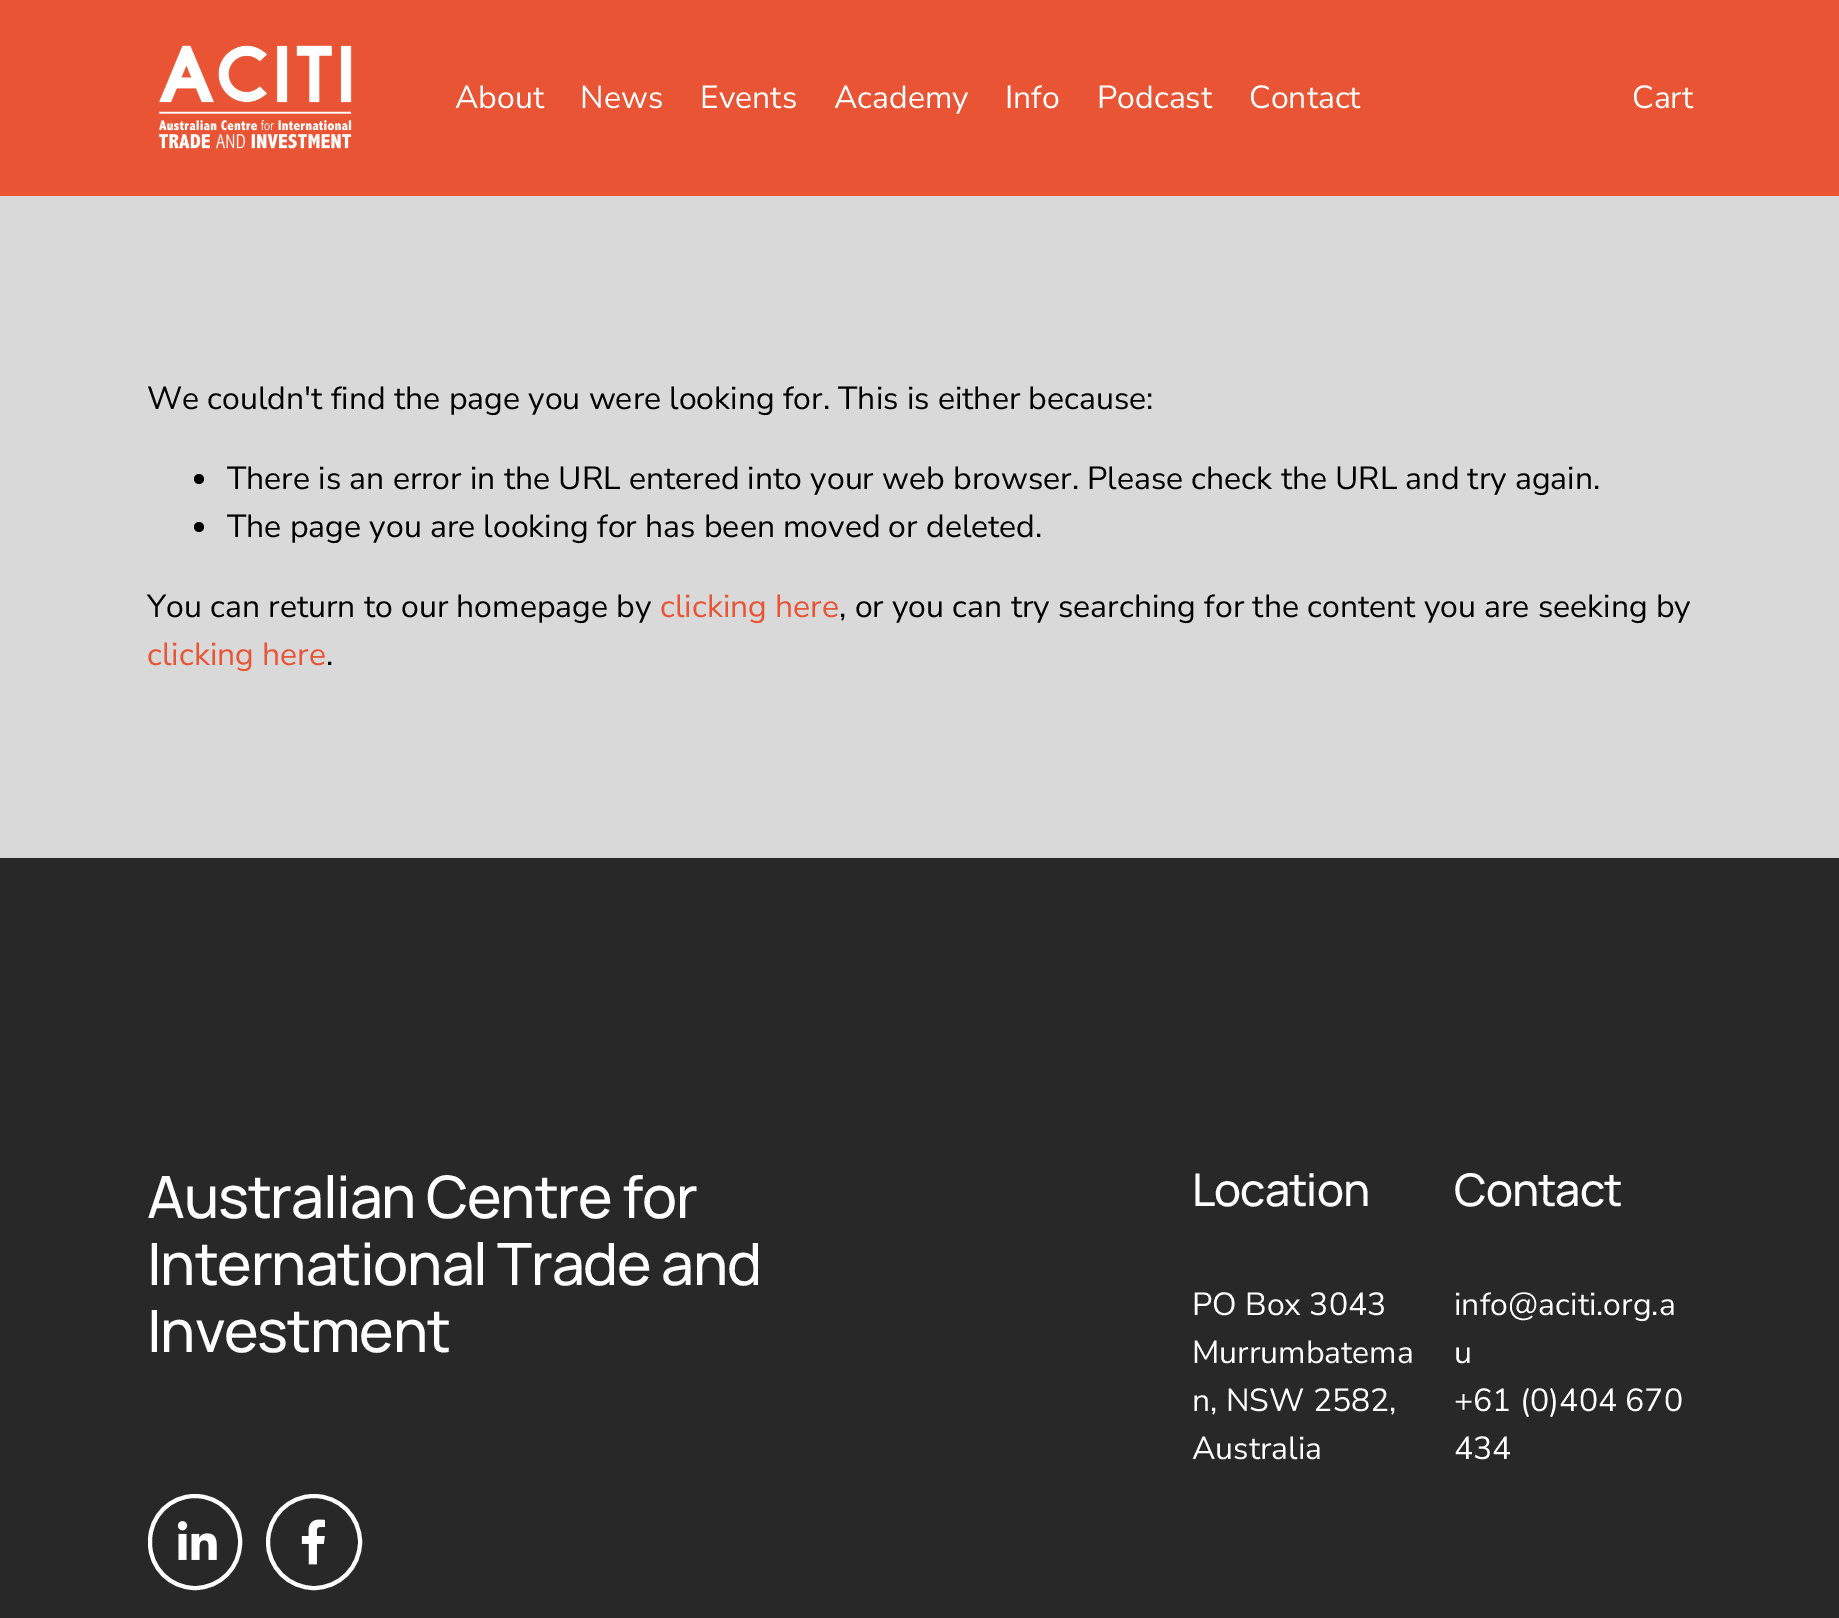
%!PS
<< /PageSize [1839 1618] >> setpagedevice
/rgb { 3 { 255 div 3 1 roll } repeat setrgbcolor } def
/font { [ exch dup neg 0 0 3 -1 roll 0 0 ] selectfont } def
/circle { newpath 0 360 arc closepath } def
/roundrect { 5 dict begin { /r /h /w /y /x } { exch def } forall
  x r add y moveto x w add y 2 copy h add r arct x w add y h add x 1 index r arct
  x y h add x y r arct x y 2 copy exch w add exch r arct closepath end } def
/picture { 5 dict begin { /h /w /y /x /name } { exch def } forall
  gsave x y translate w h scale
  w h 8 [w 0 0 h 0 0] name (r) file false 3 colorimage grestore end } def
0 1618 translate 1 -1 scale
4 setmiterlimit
218 217 217 rgb
0 0 1839 1618 rectfill
233 84 52 rgb
0 0 1839 196 rectfill
(img/1.rgb) 158 45 194 104 picture
0 0 0 rgb
199 479 5 circle fill
199 527 5 circle fill
40 40 40 rgb
0 858 1839 760 rectfill
255 255 255 rgb
4 setlinewidth
150 1496 90 92 45 roundrect stroke
(img/2.rgb) 177 1521 40 39 picture
314 1542 46 circle stroke
(img/3.rgb) 301 1519 24 46 picture
/NunitoSans-Regular 32 font
[
  [(About) 455 108]
  [(News) 580 108]
  [(Events) 700 108]
  [(Academy) 834 108]
  [(Info) 1005 108]
  [(Podcast) 1097 108]
  [(Contact) 1249 108]
  [(Cart) 1632 108]
] { aload pop moveto show } forall
0 0 0 rgb
[
  [(We couldn't find the page you were looking for. This is either because:) 147 409]
  [(There is an error in the URL entered into your web browser. Please check the URL and try again.) 227 489]
  [(The page you are looking for has been moved or deleted.) 227 537]
  [(You can return to our homepage by) 147 617]
] { aload pop moveto show } forall
233 84 52 rgb
660 617 moveto (clicking here) show
0 0 0 rgb
839 617 moveto (, or you can try searching for the content you are seeking by) show
233 84 52 rgb
147 665 moveto (clicking here) show
0 0 0 rgb
326 665 moveto (.) show
/Manrope-Medium 58.5 font
255 255 255 rgb
147 1218 moveto -1.2 0 (Australian Centre for) ashow
147 1285 moveto -1.2 0 (International Trade and) ashow
147 1352 moveto -1.2 0 (Investment) ashow
/Manrope-Medium 45 font
1192 1206 moveto -1 0 (Location) ashow
/NunitoSans-Regular 32 font
[
  [(PO Box 3043) 1192 1315]
  [(Murrumbatema) 1192 1363]
  [(n, NSW 2582,) 1192 1411]
  [(Australia) 1192 1459]
] { aload pop moveto show } forall
/Manrope-Medium 45 font
1454 1206 moveto -1 0 (Contact) ashow
/NunitoSans-Regular 32 font
[
  [(info@aciti.org.a) 1454 1315]
  [(u) 1454 1363]
  [(+61 \(0\)404 670) 1454 1411]
  [(434) 1454 1459]
] { aload pop moveto show } forall
showpage
